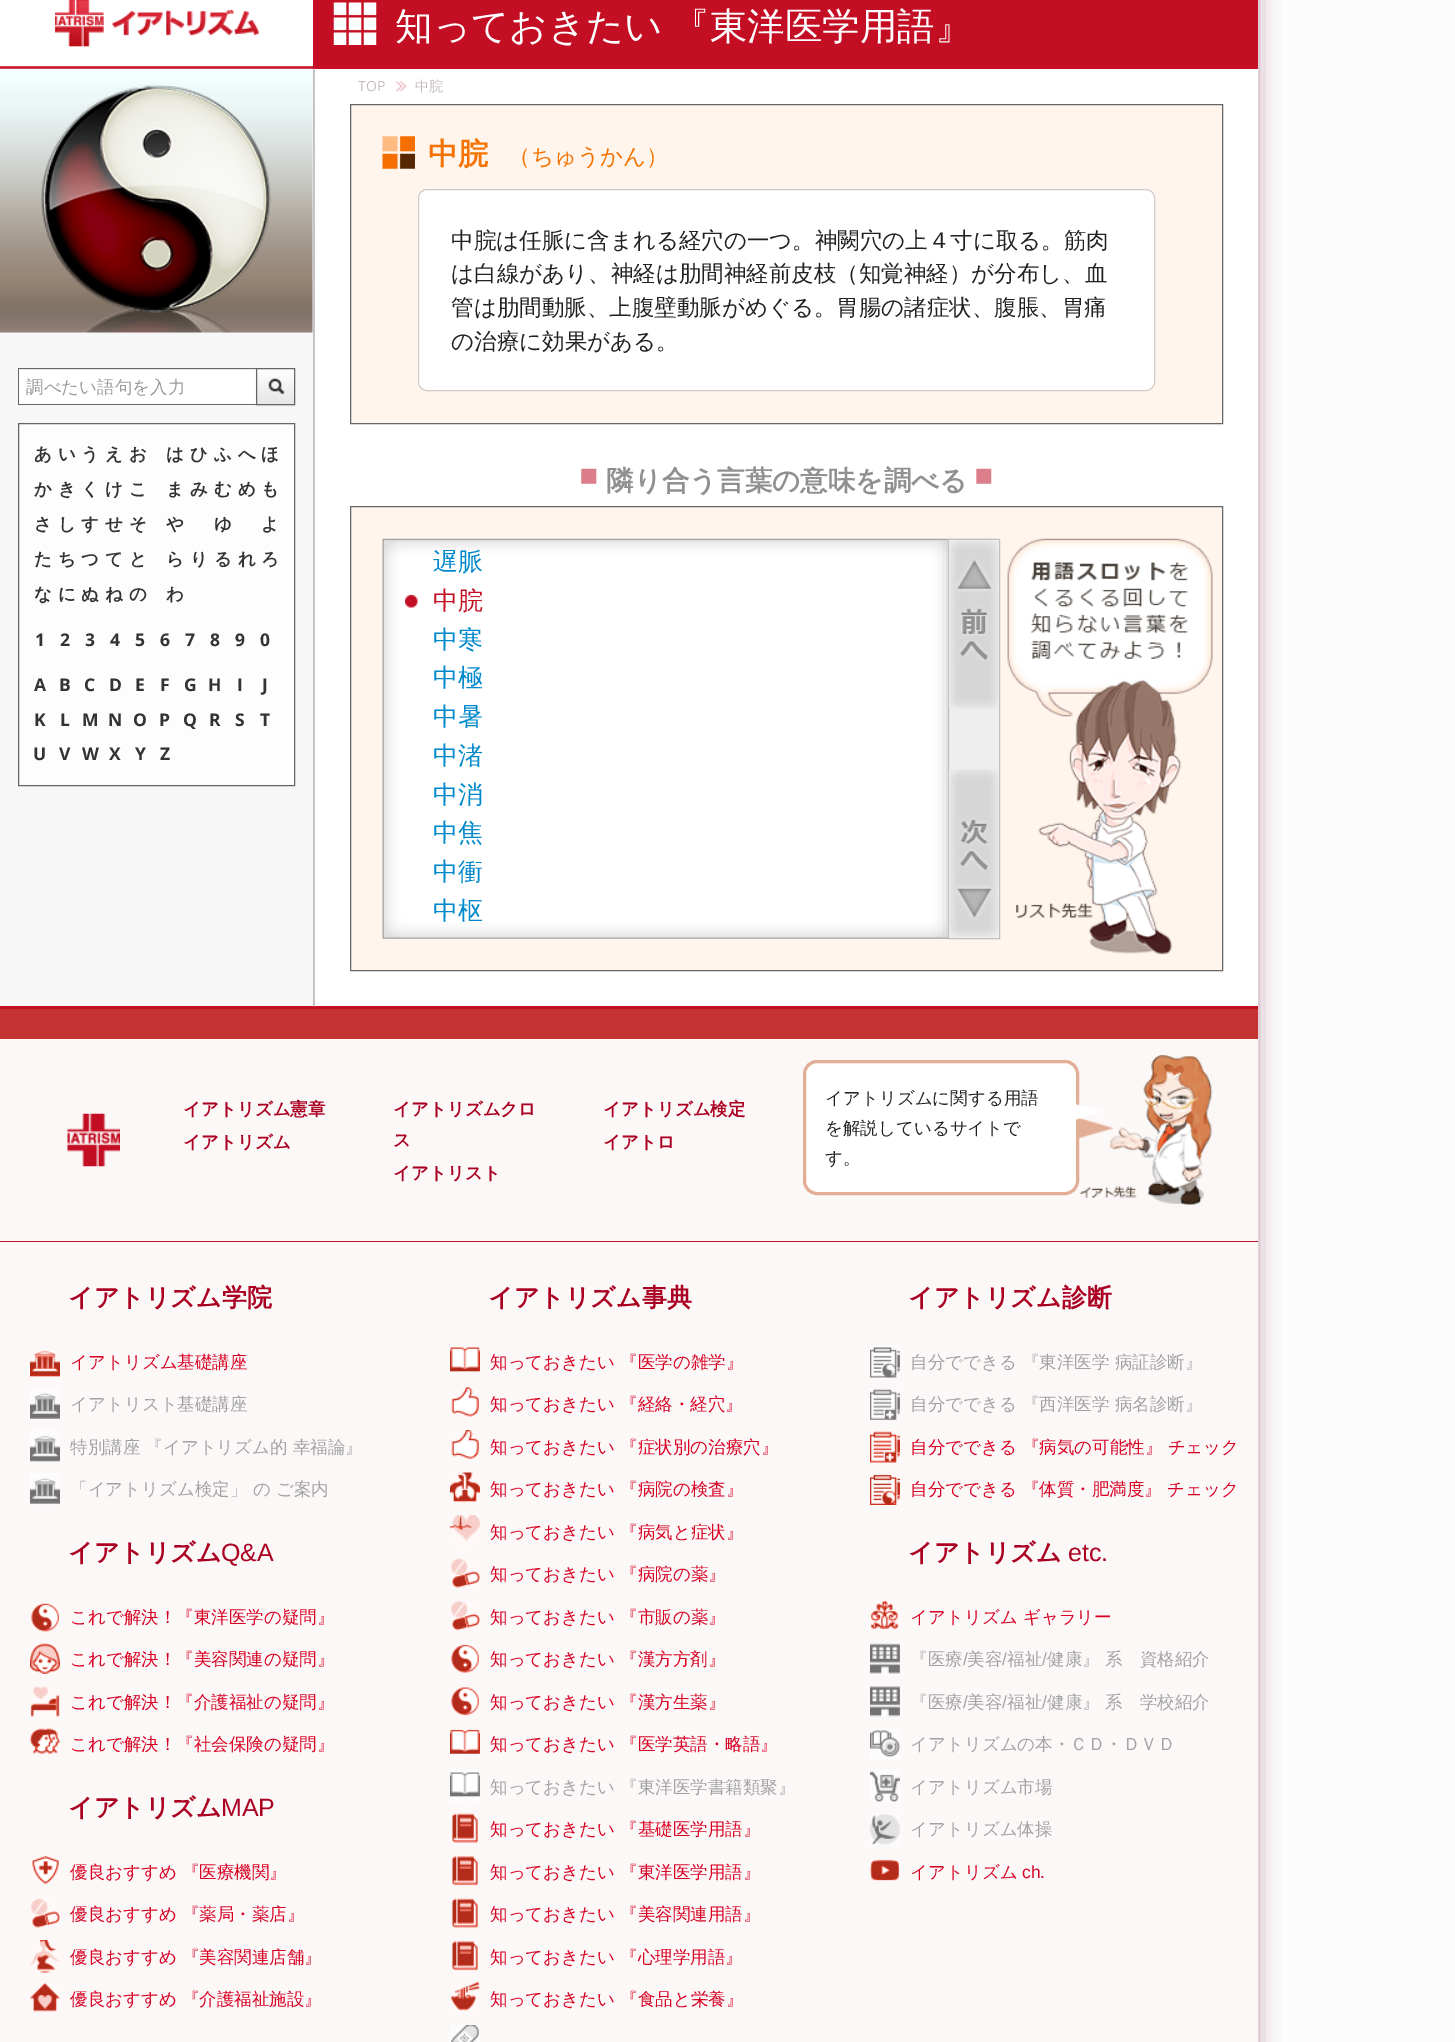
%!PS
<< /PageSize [1455 2042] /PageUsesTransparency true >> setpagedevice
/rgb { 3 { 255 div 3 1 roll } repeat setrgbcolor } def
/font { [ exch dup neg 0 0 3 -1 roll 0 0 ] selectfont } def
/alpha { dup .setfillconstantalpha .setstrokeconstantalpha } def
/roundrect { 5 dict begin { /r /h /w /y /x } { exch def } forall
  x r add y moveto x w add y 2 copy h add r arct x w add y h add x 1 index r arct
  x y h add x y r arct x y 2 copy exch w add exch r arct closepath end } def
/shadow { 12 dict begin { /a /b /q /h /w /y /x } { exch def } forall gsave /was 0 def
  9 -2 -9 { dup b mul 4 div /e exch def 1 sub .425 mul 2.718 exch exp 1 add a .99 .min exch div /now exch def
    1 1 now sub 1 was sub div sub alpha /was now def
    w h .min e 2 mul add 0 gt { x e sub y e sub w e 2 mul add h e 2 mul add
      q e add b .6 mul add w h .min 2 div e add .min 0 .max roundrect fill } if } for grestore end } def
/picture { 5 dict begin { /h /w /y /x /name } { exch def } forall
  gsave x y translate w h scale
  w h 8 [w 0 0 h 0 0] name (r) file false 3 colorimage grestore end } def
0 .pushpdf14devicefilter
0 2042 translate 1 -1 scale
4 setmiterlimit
252 252 252 rgb
0 0 1455 2042 rectfill
97 0 43 rgb
0 -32 1258 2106 0 10.5 0.35 shadow
195 14 35 rgb
0 0 1258 1009 rectfill
255 255 255 rgb
312 0 1 66 rectfill
(img/1.rgb) 0 0 313 67 picture
(img/2.rgb) 333 2 44 43 picture
(img/3.rgb) 312 68 4 939 picture
247 247 247 rgb
0 69 313 937 rectfill
(img/4.rgb) 0 68 313 265 picture
[
  [19 370 237 34 255 255 255]
  [19 369 237 1 236 236 236]
  [18 368 238 1 102 102 102]
  [18 404 238 1 102 102 102]
  [18 368 1 37 102 102 102]
] { aload pop rgb rectfill } forall
0 0 0 rgb
256 369 39 37 0 1 0.05 shadow
gsave 257 369 moveto 294 369 lineto 294 404 lineto 257 404 lineto closepath clip newpath
<< /ShadingType 2 /ColorSpace /DeviceRGB /Coords [276 369 276 404] /Extend [true true] /Function << /FunctionType 2 /Domain [0 1] /C0 [1 1 1] /C1 [0.902 0.902 0.902] /N 1 >> >> shfill grestore
102 102 102 rgb
256.5 368.5 38 36 rectstroke
(img/5.rgb) 268 378 17 17 picture
253 253 253 rgb
18.5 423.5 moveto 294.5 423.5 lineto 294.5 785.5 lineto 18.5 785.5 lineto closepath gsave fill grestore
102 102 102 rgb
stroke
255 255 255 rgb
315 69 943 937 rectfill
(img/6.rgb) 396 81 11 11 picture
255 245 237 rgb
350.5 104.5 moveto 1222.5 104.5 lineto 1222.5 423.5 lineto 350.5 423.5 lineto closepath gsave fill grestore
102 102 102 rgb
stroke
(img/7.rgb) 382 136 33 33 picture
255 255 255 rgb
418.5 189.5 736 201 8.5 roundrect gsave fill grestore
211 201 201 rgb
stroke
(img/8.rgb) 581 468 411 16 picture
255 245 237 rgb
351 507 871 463 rectfill
(img/9.rgb) 1007 538 206 417 picture
102 102 102 rgb
350.5 506.5 872 464 rectstroke
255 255 255 rgb
383 539 565 400 rectfill
(img/10.rgb) 382 538 617 401 picture
(img/11.rgb) 405 595 13 13 picture
gsave
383 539 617 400 rectclip
192 192 192 rgb
948 539 52 400 0 7.5 1 shadow
grestore
238 238 238 rgb
948.5 539.5 moveto 999.5 539.5 lineto 999.5 938.5 lineto 948.5 938.5 lineto closepath gsave fill grestore
192 192 192 rgb
stroke
(img/12.rgb) 948 540 51 169 picture
(img/13.rgb) 948 769 51 168 picture
197 50 50 rgb
0 1009 1258 30 rectfill
251 248 247 rgb
0 1039 1258 1003 rectfill
(img/14.rgb) 67 1113 53 54 picture
(img/15.rgb) 1079 1055 134 150 picture
(img/16.rgb) 1079 1117 35 22 picture
255 255 255 rgb
804.5 1061.5 273 132 12.5 roundrect gsave fill grestore
226 174 150 rgb
3 setlinewidth
stroke
(img/17.rgb) 1076 1103 25 18 picture
195 14 35 rgb
0 1241 1258 1 rectfill
(img/18.rgb) 30 1350 30 27 picture
(img/19.rgb) 30 1388 30 32 picture
(img/20.rgb) 30 1430 30 32 picture
(img/19.rgb) 30 1473 30 32 picture
(img/21.rgb) 31 1603 28 29 picture
(img/22.rgb) 30 1643 30 31 picture
(img/23.rgb) 30 1686 30 31 picture
(img/24.rgb) 30 1728 30 26 picture
(img/25.rgb) 32 1856 27 28 picture
(img/26.rgb) 31 1898 29 30 picture
(img/27.rgb) 30 1940 30 33 picture
(img/28.rgb) 30 1982 30 30 picture
(img/29.rgb) 450 1347 30 31 picture
(img/30.rgb) 451 1387 28 30 picture
(img/31.rgb) 451 1430 28 29 picture
(img/32.rgb) 450 1472 30 33 picture
(img/33.rgb) 450 1515 30 33 picture
(img/26.rgb) 451 1558 29 30 picture
(img/34.rgb) 451 1601 29 30 picture
(img/35.rgb) 451 1644 28 29 picture
(img/36.rgb) 451 1687 28 29 picture
(img/37.rgb) 450 1729 30 31 picture
(img/38.rgb) 450 1770 30 33 picture
(img/39.rgb) 451 1813 27 30 picture
(img/40.rgb) 451 1856 27 30 picture
(img/39.rgb) 451 1898 27 30 picture
(img/40.rgb) 451 1941 27 30 picture
(img/41.rgb) 451 1982 29 33 picture
(img/42.rgb) 450 2025 30 17 picture
(img/43.rgb) 870 1345 30 33 picture
(img/44.rgb) 870 1388 30 32 picture
(img/45.rgb) 870 1431 30 32 picture
(img/46.rgb) 870 1474 30 31 picture
(img/47.rgb) 871 1601 28 28 picture
(img/48.rgb) 870 1643 30 32 picture
(img/49.rgb) 870 1685 30 32 picture
(img/50.rgb) 870 1728 30 32 picture
(img/51.rgb) 870 1770 30 33 picture
(img/52.rgb) 870 1813 30 32 picture
(img/53.rgb) 870 1859 30 22 picture
/WenQuanYiZenHei-Medium 37.5 font
255 255 255 rgb
395 39 moveto -2 0 32 (知っておきたい 『東洋医学用語』) widthshow
/WenQuanYiZenHei-Medium 17.5 font
153 153 153 rgb
26 393 moveto (調べたい語句を入力) show
/WenQuanYiZenHei-Bold 17.5 font
51 51 51 rgb
[
  [(あ) 34 460]
  [(い) 58 460]
  [(う) 81 460]
  [(え) 105 460]
  [(お) 129 460]
  [(か) 34 495]
  [(き) 58 495]
  [(く) 81 495]
  [(け) 105 495]
  [(こ) 129 495]
  [(さ) 34 530]
  [(し) 58 530]
  [(す) 81 530]
  [(せ) 105 530]
  [(そ) 129 530]
  [(た) 34 565]
  [(ち) 58 565]
  [(つ) 81 565]
  [(て) 105 565]
  [(と) 129 565]
  [(な) 34 600]
  [(に) 58 600]
  [(ぬ) 81 600]
  [(ね) 105 600]
  [(の) 129 600]
  [(は) 166 460]
  [(ひ) 190 460]
  [(ふ) 214 460]
  [(へ) 238 460]
  [(ほ) 261 460]
  [(ま) 166 495]
  [(み) 190 495]
  [(む) 214 495]
  [(め) 238 495]
  [(も) 261 495]
  [(や) 166 530]
  [(ゆ) 214 530]
  [(よ) 261 530]
  [(ら) 166 565]
  [(り) 190 565]
  [(る) 214 565]
  [(れ) 238 565]
  [(ろ) 261 565]
  [(わ) 166 600]
] { aload pop moveto show } forall
/OpenSans-Bold 17.5 font
[
  [(1) 35 646]
  [(2) 60 646]
  [(3) 85 646]
  [(4) 110 646]
  [(5) 135 646]
  [(6) 160 646]
  [(7) 185 646]
  [(8) 210 646]
  [(9) 235 646]
  [(0) 260 646]
  [(A) 34 691]
  [(B) 59 691]
  [(C) 84 691]
  [(D) 109 691]
  [(E) 135 691]
  [(F) 160 691]
  [(G) 184 691]
  [(H) 208 691]
  [(I) 237 691]
  [(J) 262 691]
  [(K) 34 726]
  [(L) 60 726]
  [(M) 82 726]
  [(N) 108 726]
  [(O) 133 726]
  [(P) 159 726]
  [(Q) 183 726]
  [(R) 209 726]
  [(S) 235 726]
  [(T) 260 726]
  [(U) 33 760]
  [(V) 59 760]
  [(W) 82 760]
  [(X) 109 760]
  [(Y) 135 760]
  [(Z) 160 760]
] { aload pop moveto show } forall
/OpenSans-Regular 14 font
197 187 188 rgb
358 91 moveto (TOP) show
/WenQuanYiZenHei-Medium 14 font
415 91 moveto (中脘) show
/WenQuanYiZenHei-Bold 30 font
245 114 0 rgb
428 164 moveto (中脘) show
/WenQuanYiZenHei-Medium 22.5 font
508 164 moveto (（ちゅうかん）) show
33 33 33 rgb
[
  [(中脘は任脈に含まれる経穴の一つ。神闕穴の上４寸に取る。筋肉) 451 248]
  [(は白線があり、神経は肋間神経前皮枝（知覚神経）が分布し、血) 451 281]
  [(管は肋間動脈、上腹壁動脈がめぐる。胃腸の諸症状、腹脹、胃痛) 451 315]
  [(の治療に効果がある。) 451 349]
] { aload pop moveto show } forall
/WenQuanYiZenHei-Bold 27.5 font
144 144 144 rgb
606 490 moveto (隣り合う言葉の意味を調べる) show
/WenQuanYiZenHei-Medium 25 font
0 136 204 rgb
433 570 moveto (遅脈) show
195 14 35 rgb
433 609 moveto (中脘) show
0 136 204 rgb
[
  [(中寒) 433 648]
  [(中極) 433 686]
  [(中暑) 433 725]
  [(中渚) 433 764]
  [(中消) 433 803]
  [(中焦) 433 841]
  [(中衝) 433 880]
  [(中枢) 433 919]
] { aload pop moveto show } forall
/WenQuanYiZenHei-Bold 17.5 font
170 0 34 rgb
[
  [(イアトリズム憲章) 183 1115]
  [(イアトリズム) 183 1148]
  [(イアトリズムクロ) 393 1115]
  [(ス) 393 1146]
  [(イアトリスト) 393 1179]
  [(イアトリズム検定) 603 1115]
  [(イアトロ) 603 1148]
] { aload pop moveto show } forall
/WenQuanYiZenHei-Medium 17.5 font
33 33 33 rgb
[
  [(イアトリズムに関する用語) 825 1104]
  [(を解説しているサイトで) 825 1134]
  [(す。) 825 1164]
] { aload pop moveto show } forall
/WenQuanYiZenHei-Bold 25 font
170 0 34 rgb
68 1306 moveto (イアトリズム学院) show
/WenQuanYiZenHei-Medium 17.5 font
216 0 35 rgb
70 1368 moveto (イアトリズム基礎講座) show
162 162 162 rgb
[
  [(イアトリスト基礎講座) 70 1410]
  [(特別講座 『イアトリズム的 幸福論』) 70 1453]
  [(「イアトリズム検定」 の ご案内) 70 1495]
] { aload pop moveto show } forall
/WenQuanYiZenHei-Bold 25 font
170 0 34 rgb
68 1561 moveto (イアトリズム) show
/LiberationSans-Regular 25 font
221 1561 moveto (Q&A) show
/WenQuanYiZenHei-Medium 17.5 font
216 0 35 rgb
[
  [(これで解決！『東洋医学の疑問』) 70 1623]
  [(これで解決！『美容関連の疑問』) 70 1665]
  [(これで解決！『介護福祉の疑問』) 70 1708]
  [(これで解決！『社会保険の疑問』) 70 1750]
] { aload pop moveto show } forall
/WenQuanYiZenHei-Bold 25 font
170 0 34 rgb
68 1816 moveto (イアトリズム) show
/LiberationSans-Regular 25 font
221 1816 moveto (MAP) show
/WenQuanYiZenHei-Medium 17.5 font
216 0 35 rgb
[
  [(優良おすすめ 『医療機関』) 70 1878]
  [(優良おすすめ 『薬局・薬店』) 70 1920]
  [(優良おすすめ 『美容関連店舗』) 70 1963]
  [(優良おすすめ 『介護福祉施設』) 70 2005]
] { aload pop moveto show } forall
/WenQuanYiZenHei-Bold 25 font
170 0 34 rgb
488 1306 moveto (イアトリズム事典) show
/WenQuanYiZenHei-Medium 17.5 font
216 0 35 rgb
[
  [(知っておきたい 『医学の雑学』) 490 1368]
  [(知っておきたい 『経絡・経穴』) 490 1410]
  [(知っておきたい 『症状別の治療穴』) 490 1453]
  [(知っておきたい 『病院の検査』) 490 1495]
  [(知っておきたい 『病気と症状』) 490 1538]
  [(知っておきたい 『病院の薬』) 490 1580]
  [(知っておきたい 『市販の薬』) 490 1623]
  [(知っておきたい 『漢方方剤』) 490 1665]
  [(知っておきたい 『漢方生薬』) 490 1708]
  [(知っておきたい 『医学英語・略語』) 490 1750]
] { aload pop moveto show } forall
162 162 162 rgb
490 1793 moveto (知っておきたい 『東洋医学書籍類聚』) show
216 0 35 rgb
[
  [(知っておきたい 『基礎医学用語』) 490 1835]
  [(知っておきたい 『東洋医学用語』) 490 1878]
  [(知っておきたい 『美容関連用語』) 490 1920]
  [(知っておきたい 『心理学用語』) 490 1963]
  [(知っておきたい 『食品と栄養』) 490 2005]
] { aload pop moveto show } forall
/WenQuanYiZenHei-Bold 25 font
170 0 34 rgb
908 1306 moveto (イアトリズム診断) show
/WenQuanYiZenHei-Medium 17.5 font
162 162 162 rgb
910 1368 moveto (自分でできる 『東洋医学 病証診断』) show
910 1410 moveto (自分でできる 『西洋医学 病名診断』) show
216 0 35 rgb
910 1453 moveto (自分でできる 『病気の可能性』 チェック) show
910 1495 moveto (自分でできる 『体質・肥満度』 チェック) show
/WenQuanYiZenHei-Bold 25 font
170 0 34 rgb
908 1561 moveto (イアトリズム) show
/LiberationSans-Regular 25 font
1068 1561 moveto (etc.) show
/WenQuanYiZenHei-Medium 17.5 font
216 0 35 rgb
910 1623 moveto (イアトリズム ギャラリー) show
162 162 162 rgb
910 1665 moveto (『医療) show
/LiberationSans-Regular 17.5 font
963 1665 moveto (/) show
/WenQuanYiZenHei-Medium 17.5 font
967 1665 moveto (美容) show
/LiberationSans-Regular 17.5 font
1002 1665 moveto (/) show
/WenQuanYiZenHei-Medium 17.5 font
1007 1665 moveto (福祉) show
/LiberationSans-Regular 17.5 font
1042 1665 moveto (/) show
/WenQuanYiZenHei-Medium 17.5 font
1047 1665 moveto (健康』 系　資格紹介) show
910 1708 moveto (『医療) show
/LiberationSans-Regular 17.5 font
963 1708 moveto (/) show
/WenQuanYiZenHei-Medium 17.5 font
967 1708 moveto (美容) show
/LiberationSans-Regular 17.5 font
1002 1708 moveto (/) show
/WenQuanYiZenHei-Medium 17.5 font
1007 1708 moveto (福祉) show
/LiberationSans-Regular 17.5 font
1042 1708 moveto (/) show
/WenQuanYiZenHei-Medium 17.5 font
[
  [(健康』 系　学校紹介) 1047 1708]
  [(イアトリズムの本・ＣＤ・ＤＶＤ) 910 1750]
  [(イアトリズム市場) 910 1793]
  [(イアトリズム体操) 910 1835]
] { aload pop moveto show } forall
216 0 35 rgb
910 1878 moveto (イアトリズム) show
/LiberationSans-Regular 17.5 font
1022 1878 moveto (ch.) show
.poppdf14devicefilter showpage
